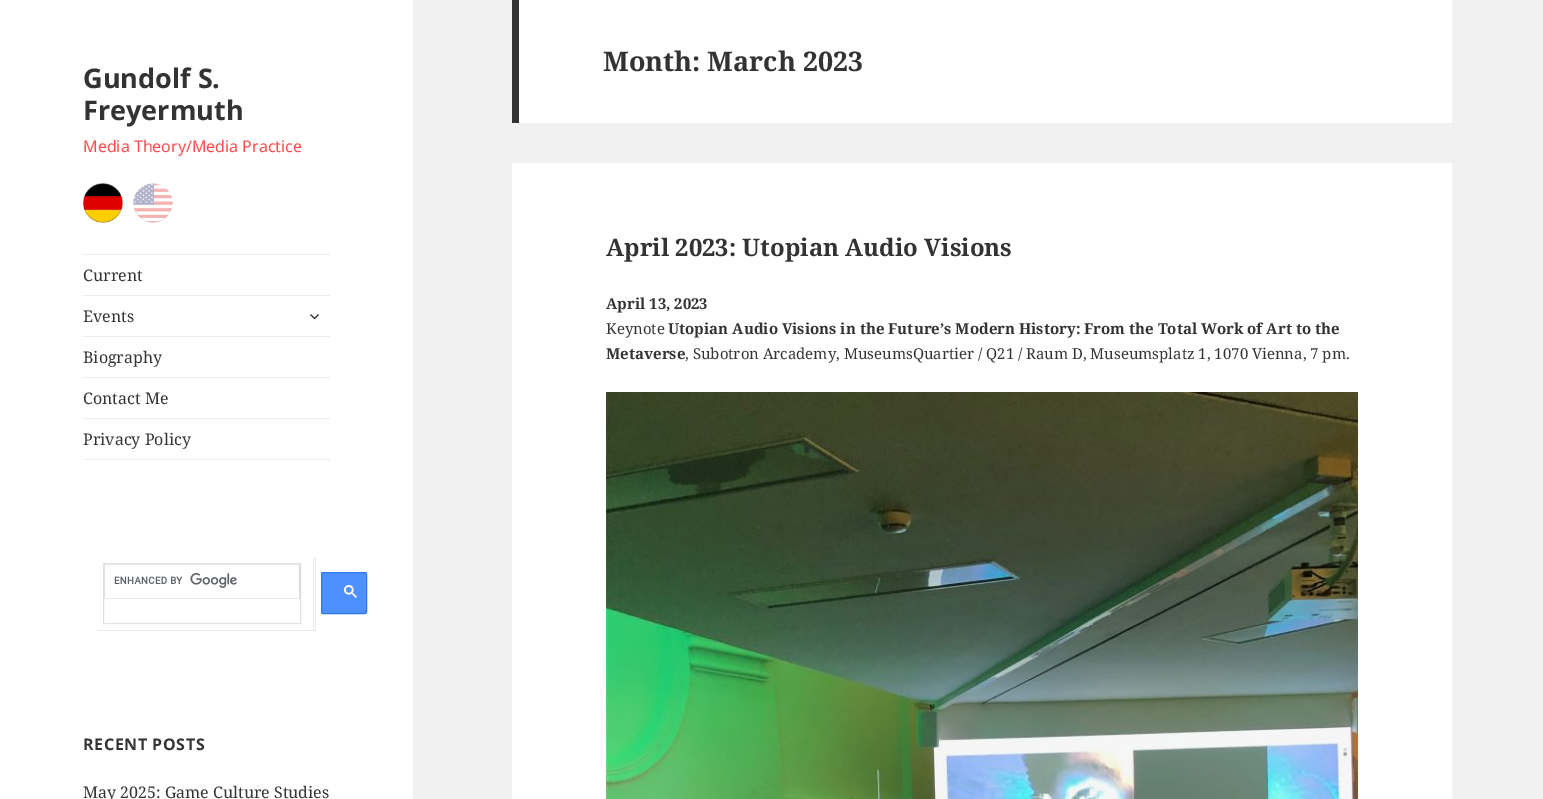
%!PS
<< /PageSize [1543 799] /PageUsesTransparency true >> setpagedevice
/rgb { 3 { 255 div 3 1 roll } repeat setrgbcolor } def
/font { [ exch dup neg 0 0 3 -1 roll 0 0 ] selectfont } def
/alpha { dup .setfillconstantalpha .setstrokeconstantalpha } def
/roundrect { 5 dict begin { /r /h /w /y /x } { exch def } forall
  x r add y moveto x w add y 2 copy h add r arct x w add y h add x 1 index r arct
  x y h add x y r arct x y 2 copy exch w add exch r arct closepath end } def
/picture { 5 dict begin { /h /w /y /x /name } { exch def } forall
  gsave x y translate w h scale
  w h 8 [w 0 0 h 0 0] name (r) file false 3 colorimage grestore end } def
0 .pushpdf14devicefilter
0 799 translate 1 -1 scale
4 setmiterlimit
241 241 241 rgb
0 0 1543 799 rectfill
255 255 255 rgb
0 0 413 799 rectfill
(img/1.rgb) 83 183 40 40 picture
(img/2.rgb) 133 183 40 40 picture
[
  [83 254 247 1 235 235 235]
  [83 459 247 1 235 235 235]
  [83 295 247 1 235 235 235]
] { aload pop rgb rectfill } forall
(img/3.rgb) 310 314 9 6 picture
[
  [83 336 247 1 235 235 235]
  [83 377 247 1 235 235 235]
  [83 418 247 1 235 235 235]
] { aload pop rgb rectfill } forall
314 557 moveto 314 631 lineto 313 630 lineto 313 557 lineto closepath fill
0.1 alpha
51 51 51 rgb
314 631 moveto 97 631 lineto 97 630 lineto 313 630 lineto closepath fill
1 alpha
223 225 229 rgb
103.5 563.5 197 60 rectstroke
235 235 235 rgb
104 564 moveto 300 564 lineto 300 565 lineto 105 565 lineto closepath fill
0.1 alpha
51 51 51 rgb
104 599 moveto 104 564 lineto 105 565 lineto 105 599 lineto closepath fill
300 599 moveto 105 599 lineto 105 598 lineto 299 598 lineto closepath fill
1 alpha
217 217 217 rgb
300 565 moveto 300 599 lineto 299 598 lineto 299 565 lineto closepath fill
208 208 208 rgb
300 599 moveto 300 598 lineto 299 598 lineto closepath fill
(img/4.rgb) 114 573 123 15 picture
235 235 235 rgb
316 557 moveto 316 631 lineto 315 630 lineto 315 557 lineto closepath fill
0.1 alpha
51 51 51 rgb
316 631 moveto 314 631 lineto 314 630 lineto 315 630 lineto closepath fill
1 alpha
77 144 254 rgb
321.5 572.5 45 41 1.5 roundrect gsave fill grestore
48 121 237 rgb
stroke
(img/5.rgb) 344 585 13 13 picture
[
  [519 0 933 123 255 255 255]
  [512 0 7 123 51 51 51]
  [512 163 940 636 255 255 255]
] { aload pop rgb rectfill } forall
(img/6.rgb) 606 392 752 407 picture
/NotoSans-Bold 27 font
51 51 51 rgb
83 88 moveto (Gundolf S.) show
83 120 moveto (Freyermuth) show
/NotoSans-Regular 16 font
255 77 77 rgb
83 152 moveto (Media Theory/Media Practice) show
/NotoSerif-Regular 16 font
51 51 51 rgb
[
  [(Current) 83 281]
  [(Events) 83 322]
  [(Biography) 83 363]
  [(Contact Me) 83 404]
  [(Privacy Policy) 83 445]
] { aload pop moveto show } forall
/NotoSans-Bold 16 font
83 750 moveto 0.6 0 (RECENT POSTS) ashow
/NotoSerif-Regular 16 font
83 798 moveto (May 2025: Game Culture Studies) show
/NotoSerif-Bold 27 font
603 71 moveto (Month: March 2023) show
/NotoSerif-Bold 24 font
606 256 moveto (April 2023: Utopian Audio Visions) show
/NotoSerif-Bold 15 font
606 309 moveto (April 13, 2023) show
/NotoSerif-Regular 15 font
606 334 moveto (Keynote) show
/NotoSerif-Bold 15 font
668 334 moveto (Utopian Audio Visions in the Future’s Modern History: From the Total Work of Art to the) show
606 359 moveto (Metaverse) show
/NotoSerif-Regular 15 font
685 359 moveto (, Subotron Arcademy, MuseumsQuartier / Q21 / Raum D, Museumsplatz 1, 1070 Vienna, 7 pm.) show
.poppdf14devicefilter showpage
